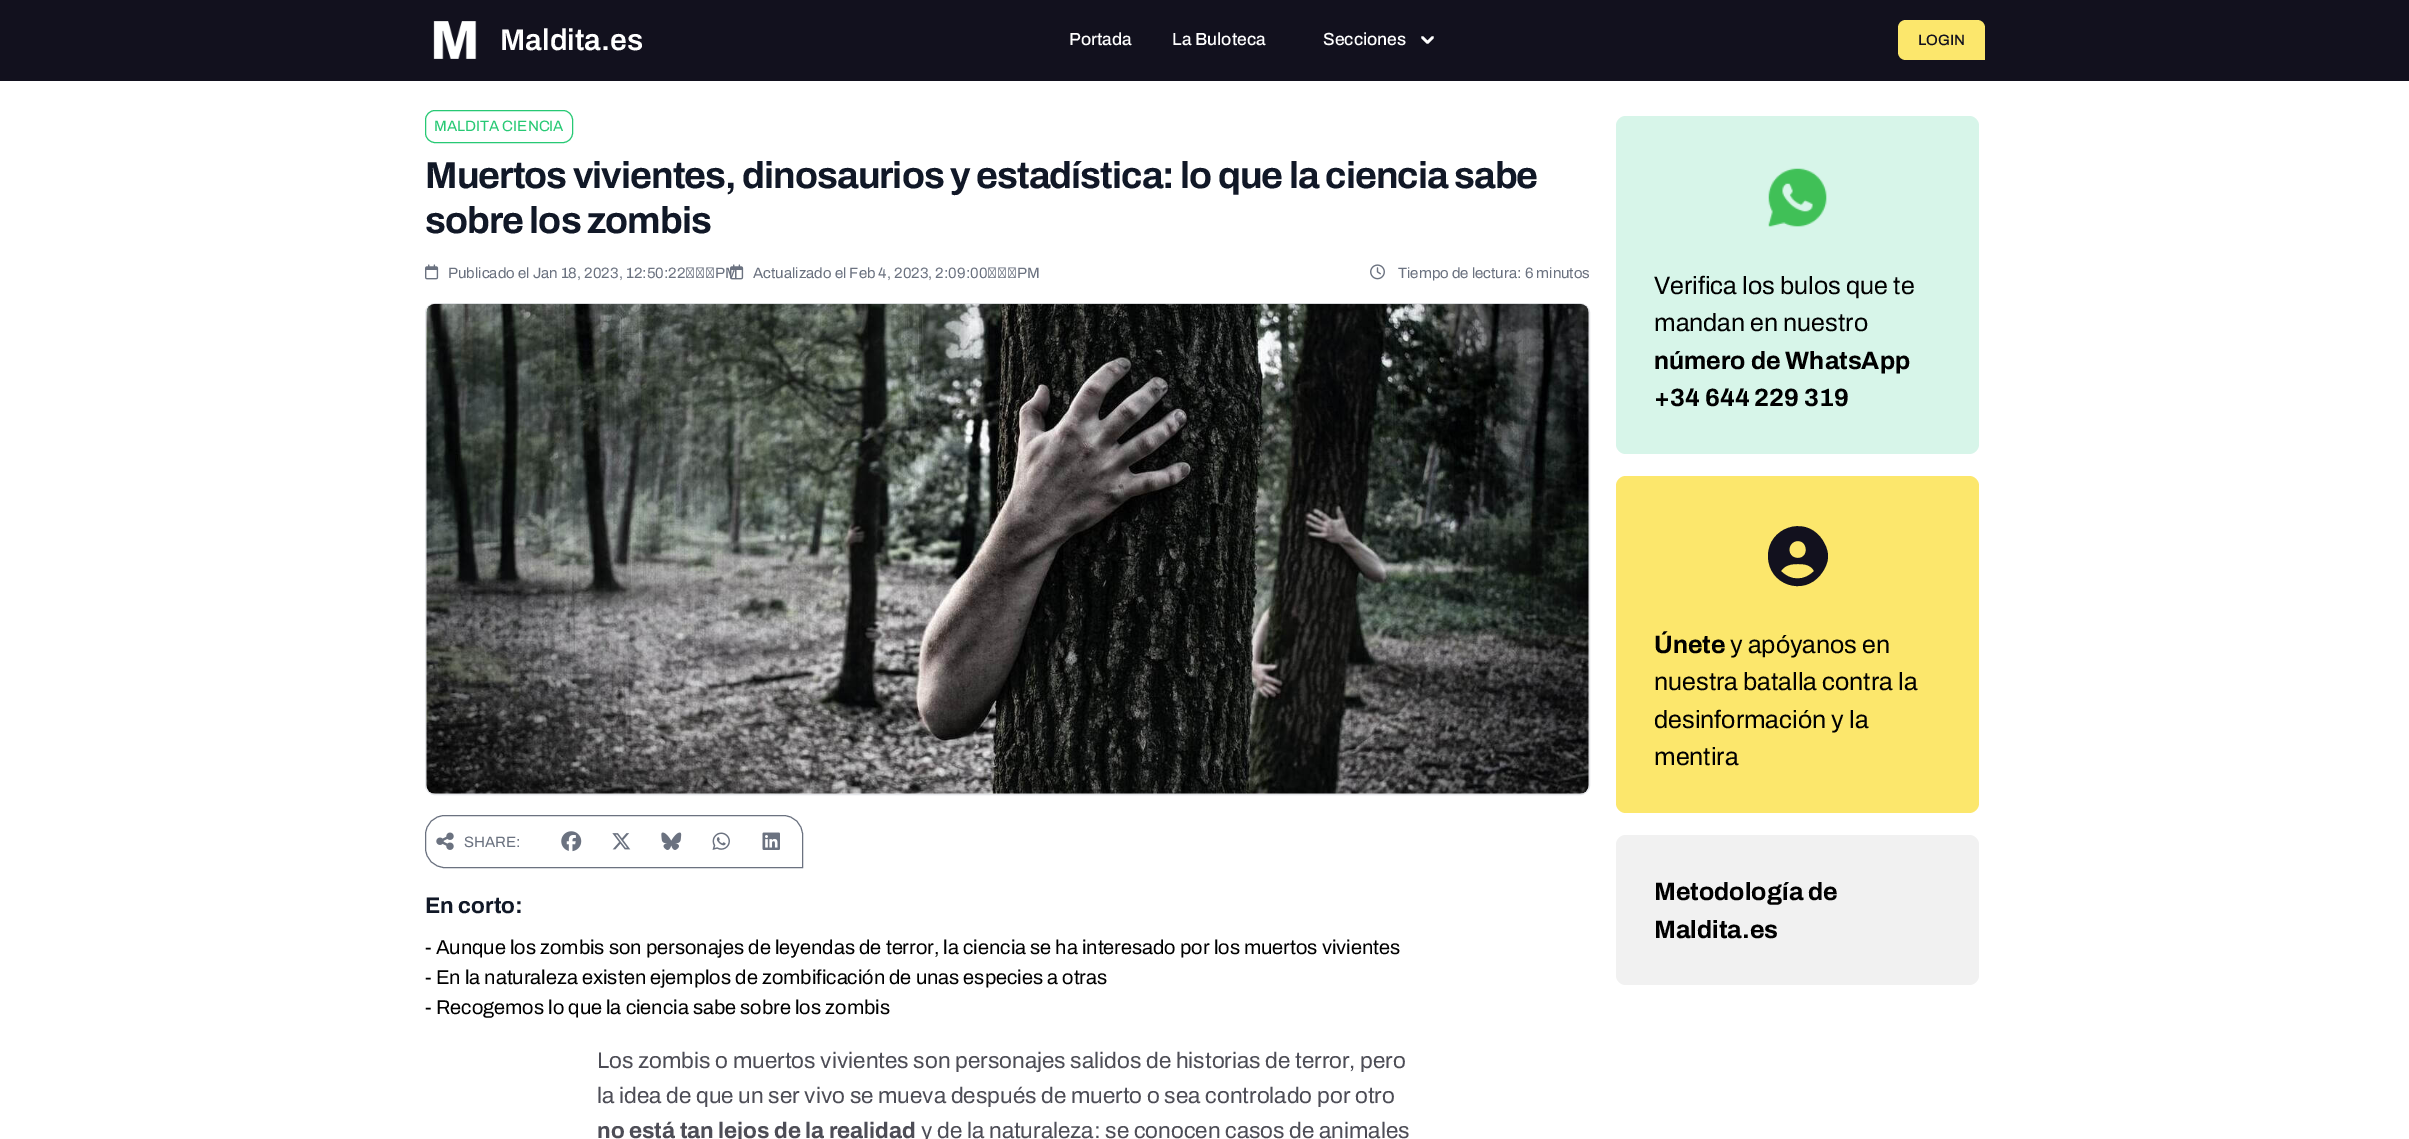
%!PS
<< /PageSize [2409 1139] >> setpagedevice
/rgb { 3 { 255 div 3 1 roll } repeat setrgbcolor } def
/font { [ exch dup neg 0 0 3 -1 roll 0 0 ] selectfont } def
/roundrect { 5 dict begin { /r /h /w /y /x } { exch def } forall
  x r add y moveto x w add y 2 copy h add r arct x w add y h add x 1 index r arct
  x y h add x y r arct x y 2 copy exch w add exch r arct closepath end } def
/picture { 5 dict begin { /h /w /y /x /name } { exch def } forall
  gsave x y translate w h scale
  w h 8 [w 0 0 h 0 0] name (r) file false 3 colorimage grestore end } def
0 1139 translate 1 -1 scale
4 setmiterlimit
255 255 255 rgb
0 0 2409 1139 rectfill
18 17 30 rgb
0 0 2409 81 rectfill
(img/1.rgb) 433 21 44 38 picture
255 255 255 rgb
2.5 setlinewidth
1 setlinecap
1 setlinejoin
1422.5 37.5 moveto 1427.5 42.5 lineto 1432.5 37.5 lineto stroke
252 231 108 rgb
1906 20 moveto 1977 20 lineto 1981.5 20 1985 23.5 1985 28 curveto 1985 60 lineto 1906 60 lineto 1901.5 60 1898 56.5 1898 52 curveto 1898 28 lineto 1898 23.5 1901.5 20 1906 20 curveto closepath fill
39 201 116 rgb
1 setlinewidth
0 setlinecap
0 setlinejoin
425.5 110.5 147 32 9.5 roundrect stroke
(img/2.rgb) 425 264 14 16 picture
(img/2.rgb) 730 264 14 16 picture
(img/3.rgb) 1370 264 15 16 picture
229 231 235 rgb
425.5 303.5 1164 491 9.5 roundrect stroke
(img/4.rgb) 426 303 1163 491 picture
107 114 128 rgb
445 815.5 moveto 783 815.5 lineto 794 815.5 802.5 824 802.5 835 curveto 802.5 867.5 lineto 445 867.5 lineto 434 867.5 425.5 859 425.5 848 curveto 425.5 835 lineto 425.5 824 434 815.5 445 815.5 curveto closepath stroke
(img/5.rgb) 436 832 18 18 picture
(img/6.rgb) 561 831 21 21 picture
(img/7.rgb) 612 833 19 17 picture
(img/8.rgb) 661 832 21 18 picture
(img/9.rgb) 712 832 18 18 picture
(img/10.rgb) 762 832 18 18 picture
215 245 233 rgb
1616 116 363 338 10 roundrect fill
(img/11.rgb) 1768 168 59 59 picture
252 231 108 rgb
1616 476 363 337 10 roundrect fill
18 17 30 rgb
1814 571 moveto 1811 565 1805 564 1798 564 curveto 1791 564 1785 565 1781 571 curveto 1790 581 1805 581 1814 571 curveto closepath 1768 556 moveto 1768 528 1804 515 1821 538 curveto 1825 543 1828 550 1828 556 curveto 1828 563 1825 569 1821 574 curveto 1804 597 1768 585 1768 556 curveto closepath 1798 558 moveto 1809 558 1808 541 1798 541 curveto 1787 541 1786 558 1798 558 curveto closepath fill
241 241 241 rgb
1616 835 363 150 10 roundrect fill
/Archivo-SemiBold 30 font
255 255 255 rgb
500 50 moveto (Maldita.es) show
/Archivo-Medium 17.5 font
[
  [(Portada) 1069 45]
  [(La Buloteca) 1172 45]
  [(Secciones) 1323 45]
] { aload pop moveto show } forall
/Archivo-Medium 15 font
18 17 30 rgb
1918 45 moveto (LOGIN) show
/Archivo-Regular 15 font
39 201 116 rgb
434 131 moveto (MALDITA CIENCIA) show
/Archivo-Bold 37.5 font
17 24 39 rgb
425 188 moveto -0.95 0 (Muertos vivientes, dinosaurios y estadística: lo que la ciencia sabe) ashow
425 233 moveto -0.95 0 (sobre los zombis) ashow
/Archivo-Regular 15 font
107 114 128 rgb
[
  [(Publicado el Jan 18, 2023, 12:50:22 PM) 448 278]
  [(Actualizado el Feb 4, 2023, 2:09:00 PM) 753 278]
  [(Tiempo de lectura: 6 minutos) 1398 278]
  [(SHARE:) 464 847]
] { aload pop moveto show } forall
/Archivo-Bold 22.5 font
17 24 39 rgb
425 913 moveto (En corto:) show
/Archivo-Regular 20 font
0 0 0 rgb
[
  [(- Aunque los zombis son personajes de leyendas de terror, la ciencia se ha interesado por los muertos vivientes) 425 954]
  [(- En la naturaleza existen ejemplos de zombificación de unas especies a otras) 425 984]
  [(- Recogemos lo que la ciencia sabe sobre los zombis) 425 1014]
] { aload pop moveto show } forall
/Archivo-Regular 22.5 font
77 77 86 rgb
597 1068 moveto (Los zombis o muertos vivientes son personajes salidos de historias de terror, pero) show
597 1103 moveto (la idea de que un ser vivo se mueva después de muerto o sea controlado por otro) show
/Archivo-Bold 22.5 font
597 1138 moveto (no está tan lejos de la realidad) show
/Archivo-Regular 22.5 font
921 1138 moveto (y de la naturaleza: se conocen casos de animales) show
/Archivo-Regular 25 font
0 0 0 rgb
1654 294 moveto (Verifica los bulos que te) show
1654 331 moveto (mandan en nuestro) show
/Archivo-Bold 25 font
[
  [(número de WhatsApp) 1654 369]
  [(+34 644 229 319) 1654 406]
  [(Únete) 1654 653]
] { aload pop moveto show } forall
/Archivo-Regular 25 font
[
  [(y apóyanos en) 1730 653]
  [(nuestra batalla contra la) 1654 690]
  [(desinformación y la) 1654 728]
  [(mentira) 1654 765]
] { aload pop moveto show } forall
/Archivo-Bold 25 font
1654 900 moveto (Metodología de) show
1654 938 moveto (Maldita.es) show
showpage
